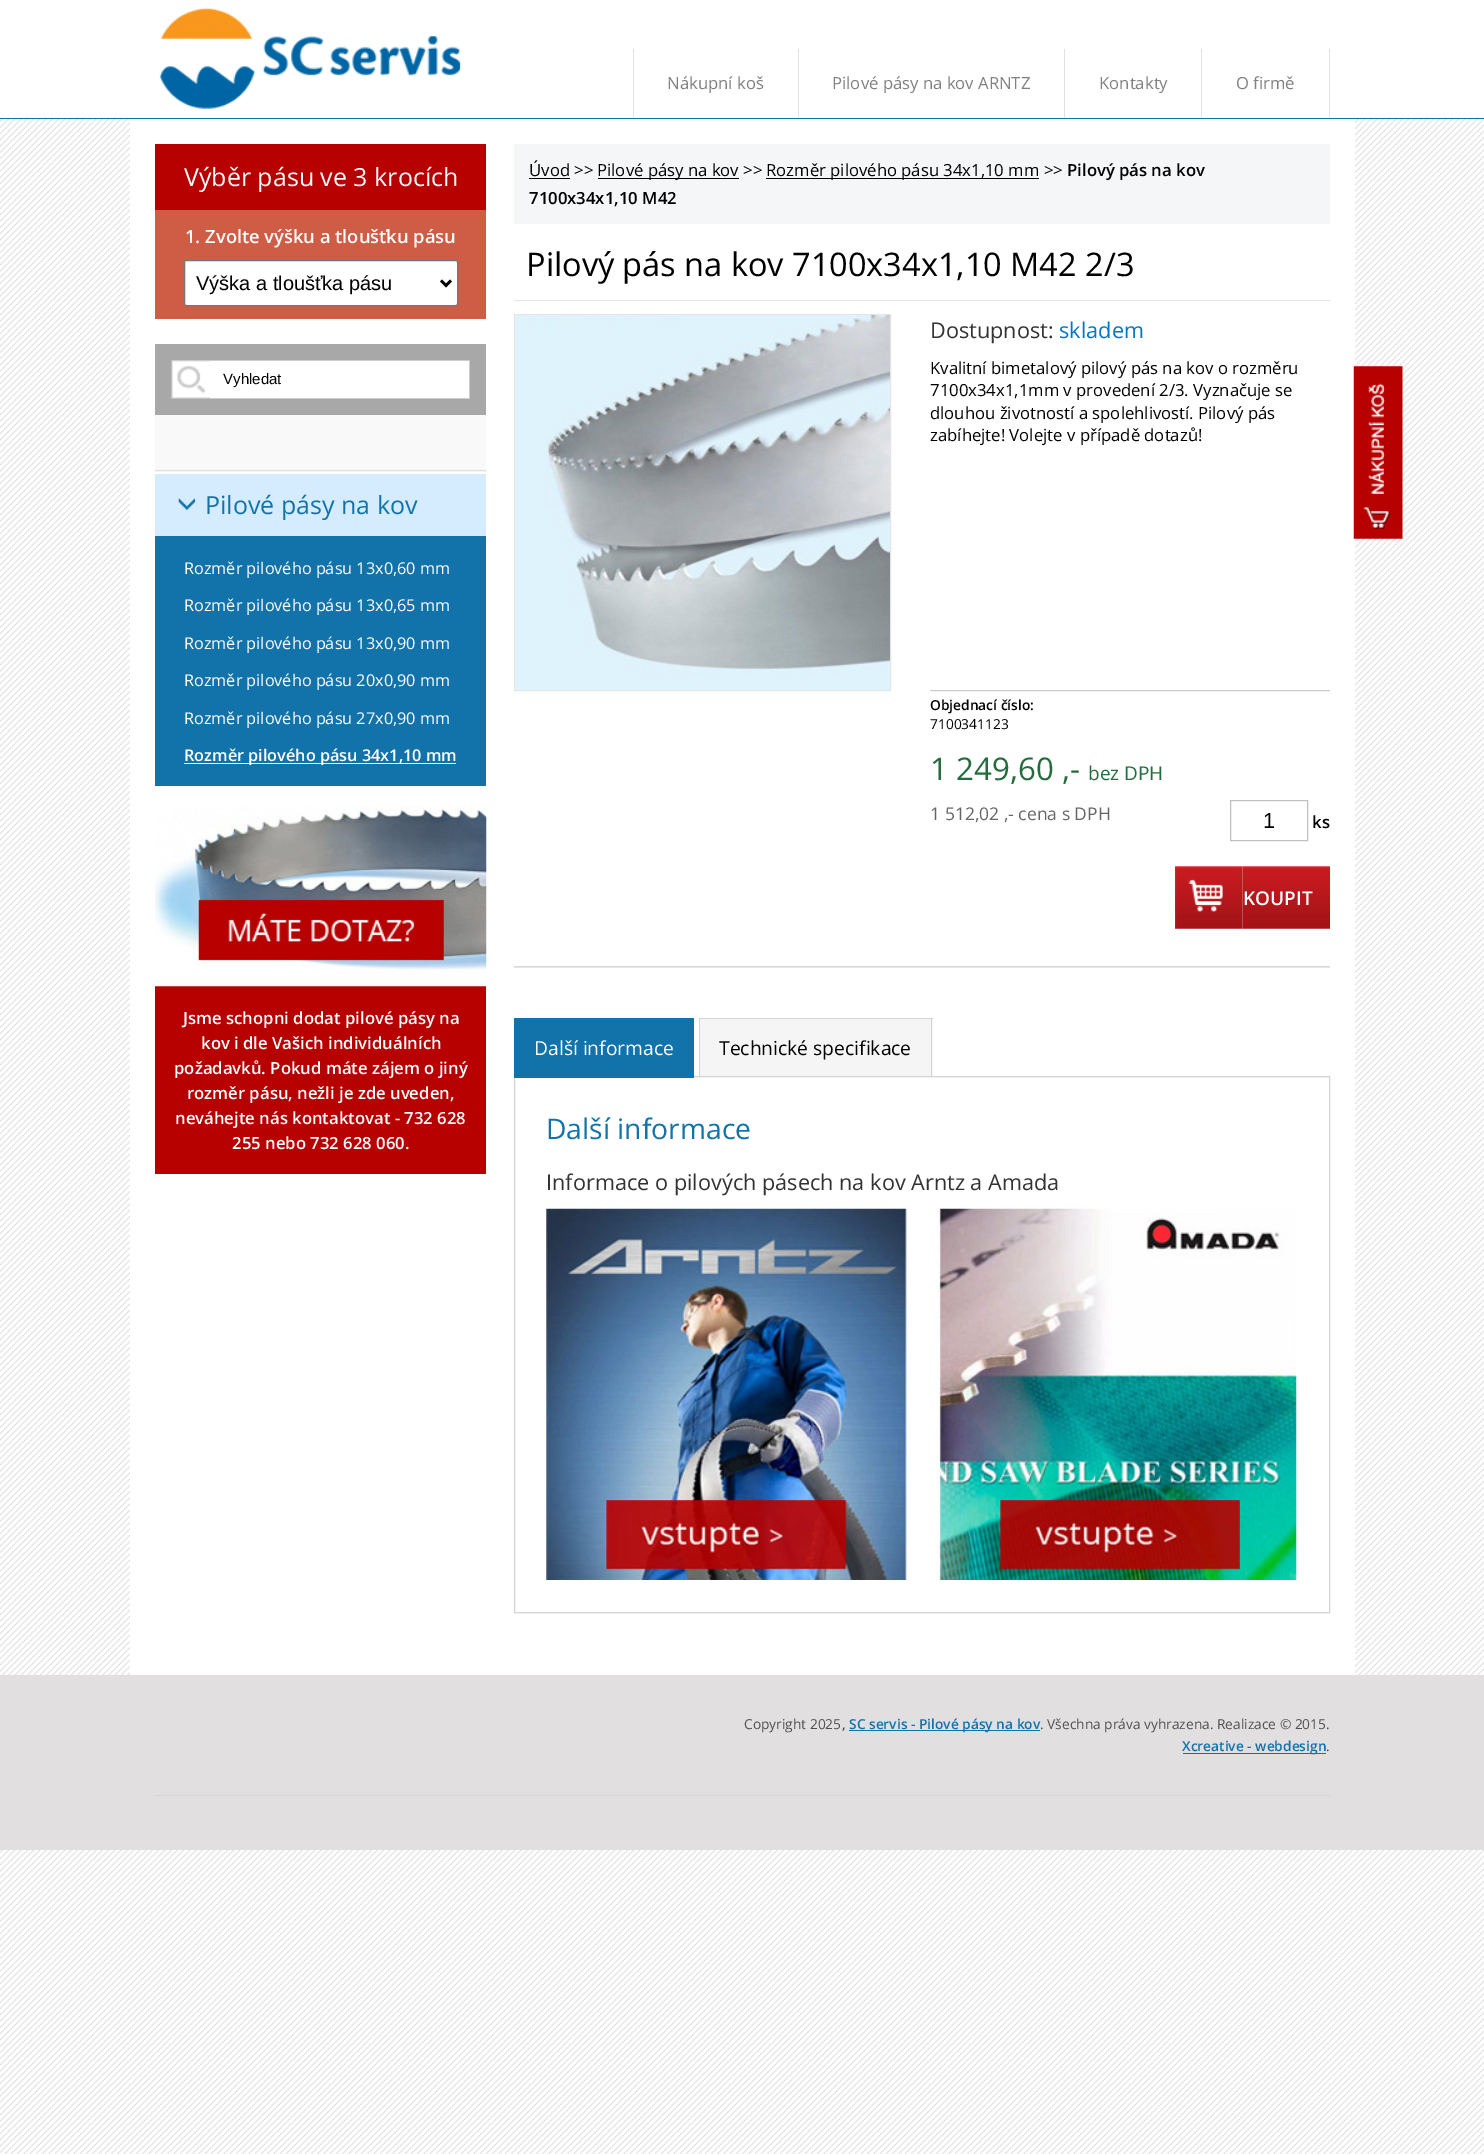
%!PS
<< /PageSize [1484 2154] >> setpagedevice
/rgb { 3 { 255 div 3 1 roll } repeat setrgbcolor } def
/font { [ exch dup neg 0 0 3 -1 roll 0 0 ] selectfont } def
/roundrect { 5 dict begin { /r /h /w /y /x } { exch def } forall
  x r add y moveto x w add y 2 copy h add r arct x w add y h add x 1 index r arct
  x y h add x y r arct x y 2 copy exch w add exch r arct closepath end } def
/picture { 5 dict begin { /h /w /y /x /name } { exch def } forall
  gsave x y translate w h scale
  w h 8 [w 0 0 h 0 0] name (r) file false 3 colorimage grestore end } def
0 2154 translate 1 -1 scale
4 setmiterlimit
255 255 255 rgb
0 0 1484 2154 rectfill
(img/1.rgb) 0 119 1484 2035 picture
17 115 169 rgb
0 118 1484 1 rectfill
(img/2.rgb) 159 8 302 101 picture
[
  [633 49 1 69 225 225 225]
  [798 49 1 69 225 225 225]
  [1064 49 1 69 225 225 225]
  [1329 49 1 69 225 225 225]
  [1201 49 1 69 225 225 225]
  [130 119 1225 1556 255 255 255]
] { aload pop rgb rectfill } forall
(img/3.rgb) 1353 366 50 173 picture
183 0 0 rgb
155 144 331 66 rectfill
207 93 69 rgb
155 210 331 109 rectfill
255 255 255 rgb
184.5 260.5 273 45 2 roundrect gsave fill grestore
118 118 118 rgb
stroke
0 0 0 rgb
2.5 setlinewidth
441 280.5 moveto 446 285.5 lineto 451 280.5 lineto stroke
168 168 168 rgb
155 344 331 71 rectfill
(img/4.rgb) 171 360 39 39 picture
[
  [210 361 259 37 255 255 255]
  [210 360 260 1 204 204 204]
  [469 360 1 39 204 204 204]
  [210 398 260 1 204 204 204]
] { aload pop rgb rectfill } forall
(img/5.rgb) 155 415 332 57 picture
213 236 254 rgb
155 474 331 62 rectfill
(img/6.rgb) 178 498 17 13 picture
[
  [155 536 331 250 17 115 169]
  [184 763 272 1 255 255 255]
  [155 986 331 188 183 0 0]
] { aload pop rgb rectfill } forall
(img/7.rgb) 155 806 332 181 picture
[
  [514 144 816 80 245 246 248]
  [529 178 41 1 0 0 0]
  [598 178 141 1 0 0 0]
  [766 178 273 1 0 0 0]
  [514 300 816 1 229 229 229]
] { aload pop rgb rectfill } forall
1 setlinewidth
514.5 314.5 376 376 rectstroke
(img/8.rgb) 515 315 375 375 picture
(img/9.rgb) 930 690 400 2 picture
192 192 192 rgb
1230.5 800.5 77 40 rectstroke
(img/10.rgb) 1175 866 68 63 picture
(img/11.rgb) 1242 866 88 63 picture
(img/12.rgb) 513 966 817 2 picture
211 211 211 rgb
514.5 1076.5 815 536 rectstroke
[
  [514 1018 180 60 17 115 169]
  [700 1019 233 57 245 245 245]
  [699 1018 234 1 211 211 211]
  [931 1018 1 58 211 211 211]
  [699 1018 1 58 211 211 211]
] { aload pop rgb rectfill } forall
(img/13.rgb) 546 1208 751 372 picture
[
  [0 1675 1484 175 225 223 224]
  [849 1730 191 1 17 115 169]
  [1183 1753 143 1 17 115 169]
  [155 1795 1175 1 218 212 209]
] { aload pop rgb rectfill } forall
/OpenSans-Regular 16.7 font
128 128 128 rgb
[
  [(Nákupní koš) 667 89]
  [(Pilové pásy na kov ARNTZ) 832 89]
  [(Kontakty) 1099 89]
  [(O firmě) 1236 89]
] { aload pop moveto show } forall
/OpenSans-Regular 25 font
255 255 255 rgb
184 186 moveto (Výběr pásu ve 3 krocích) show
/OpenSans-SemiBold 18.3 font
185 243 moveto (1. Zvolte výšku a tloušťku pásu) show
/LiberationSans-Regular 20 font
0 0 0 rgb
196 290 moveto (Výška a tloušťka pásu) show
/LiberationSans-Regular 15 font
223 384 moveto (Vyhledat) show
/OpenSans-Regular 25 font
17 115 169 rgb
205 514 moveto (Pilové pásy na kov) show
/OpenSans-Regular 16.25 font
255 255 255 rgb
[
  [(Rozměr pilového pásu 13x0,60 mm) 184 574]
  [(Rozměr pilového pásu 13x0,65 mm) 184 611]
  [(Rozměr pilového pásu 13x0,90 mm) 184 649]
  [(Rozměr pilového pásu 20x0,90 mm) 184 686]
  [(Rozměr pilového pásu 27x0,90 mm) 184 724]
] { aload pop moveto show } forall
/OpenSans-SemiBold 16.25 font
184 761 moveto (Rozměr pilového pásu 34x1,10 mm) show
/OpenSans-SemiBold 16.7 font
[
  [(Jsme schopni dodat pilové pásy na) 183 1024]
  [(kov i dle Vašich individuálních) 201 1049]
  [(požadavků. Pokud máte zájem o jiný) 174 1074]
  [(rozměr pásu, nežli je zde uveden,) 187 1099]
  [(neváhejte nás kontaktovat - 732 628) 175 1124]
  [(255 nebo 732 628 060.) 232 1149]
] { aload pop moveto show } forall
/OpenSans-Regular 16.7 font
0 0 0 rgb
[
  [(Úvod >>) 529 176]
  [(Pilové pásy na kov >>) 597 176]
  [(Rozměr pilového pásu 34x1,10 mm >>) 766 176]
] { aload pop moveto show } forall
/OpenSans-SemiBold 16.7 font
1067 176 moveto (Pilový pás na kov) show
529 204 moveto (7100x34x1,10 M42) show
/OpenSans-Regular 32.5 font
526 276 moveto (Pilový pás na kov 7100x34x1,10 M42 2/3) show
/OpenSans-Regular 21.7 font
51 51 51 rgb
930 338 moveto (Dostupnost:) show
0 118 200 rgb
1059 338 moveto (skladem) show
/OpenSans-Regular 16.7 font
0 0 0 rgb
[
  [(Kvalitní bimetalový pilový pás na kov o rozměru) 930 374]
  [(7100x34x1,1mm v provedení 2/3. Vyznačuje se) 930 396]
  [(dlouhou životností a spolehlivostí. Pilový pás) 930 419]
  [(zabíhejte! Volejte v případě dotazů!) 930 441]
] { aload pop moveto show } forall
/OpenSans-SemiBold 13.75 font
930 710 moveto (Objednací číslo:) show
/OpenSans-Regular 13.75 font
930 729 moveto (7100341123) show
/OpenSans-Regular 31.25 font
35 109 60 rgb
930 780 moveto (1 249,60 ,-) show
/OpenSans-Regular 19 font
1088 780 moveto (bez DPH) show
/OpenSans-Regular 17.5 font
102 102 102 rgb
930 820 moveto (1 512,02 ,- cena s DPH) show
/LiberationSans-Regular 21.7 font
0 0 0 rgb
1263 828 moveto (1) show
/OpenSans-SemiBold 16.7 font
1312 828 moveto (ks) show
/OpenSans-SemiBold 19 font
255 255 255 rgb
1243 905 moveto (KOUPIT) show
/OpenSans-Regular 19.25 font
534 1055 moveto (Další informace) show
0 0 0 rgb
719 1055 moveto (Technické specifikace) show
/OpenSans-Regular 28.25 font
17 115 169 rgb
546 1139 moveto (Další informace) show
/OpenSans-Regular 21.7 font
51 51 51 rgb
546 1190 moveto (Informace o pilových pásech na kov Arntz a Amada) show
/OpenSans-Regular 13.75 font
80 80 80 rgb
744 1729 moveto (Copyright 2025) show
/OpenSans-SemiBold 13.75 font
842 1729 moveto (,) show
17 115 169 rgb
849 1729 moveto (SC servis - Pilové pásy na kov) show
/OpenSans-Regular 13.75 font
80 80 80 rgb
1040 1729 moveto (. Všechna práva vyhrazena. Realizace © 2015.) show
/OpenSans-SemiBold 13.75 font
17 115 169 rgb
1182 1751 moveto (Xcreative - webdesign) show
/OpenSans-Regular 13.75 font
80 80 80 rgb
1326 1751 moveto (.) show
showpage
